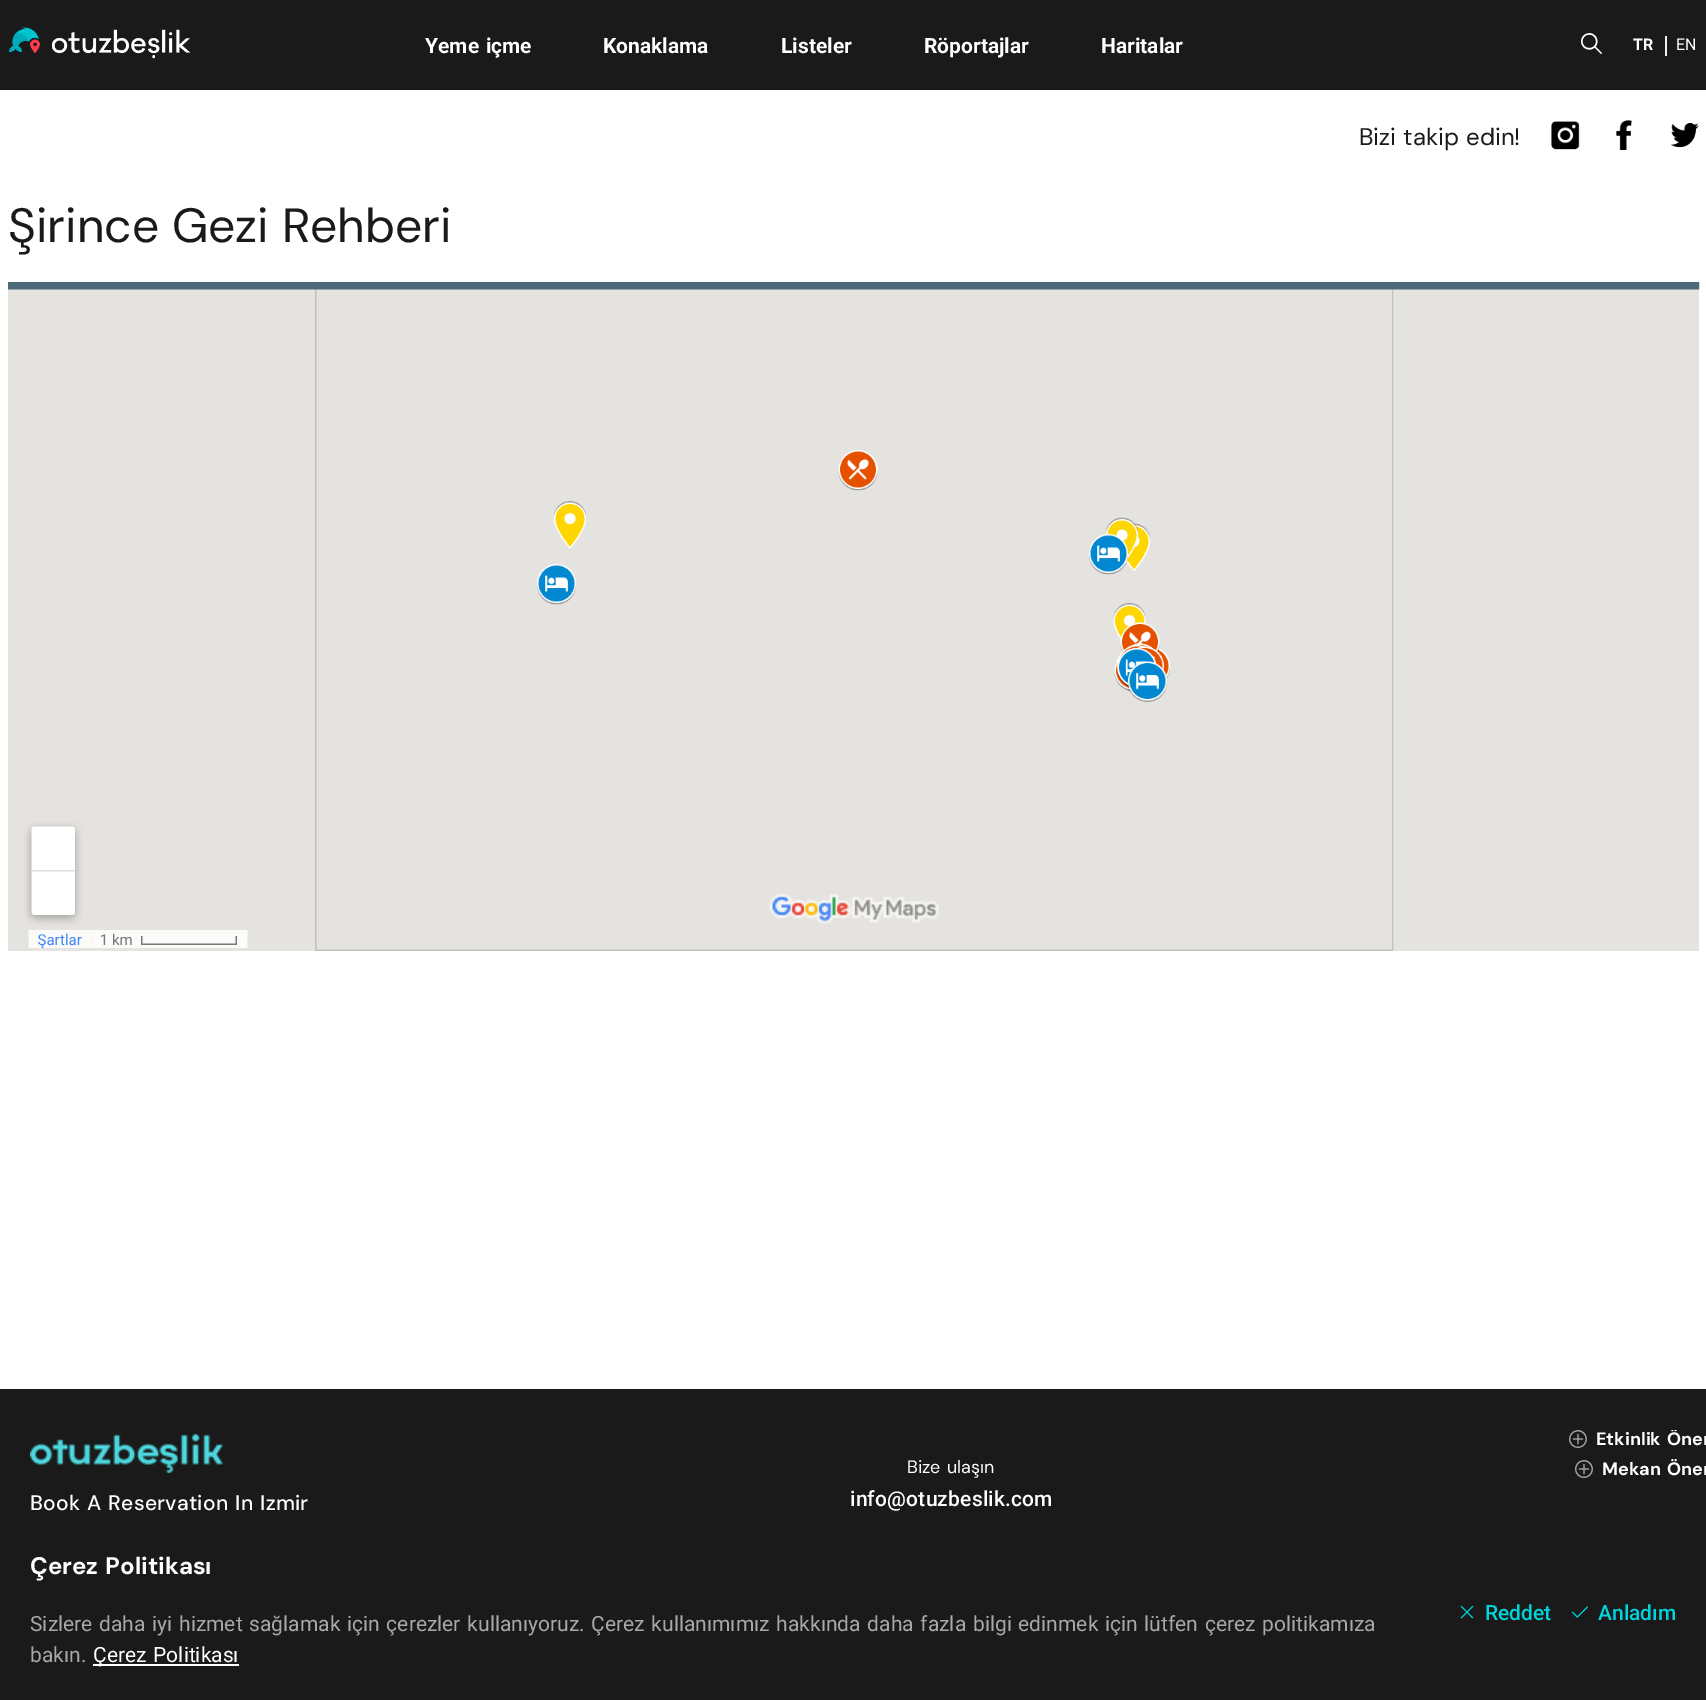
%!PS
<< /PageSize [1706 1700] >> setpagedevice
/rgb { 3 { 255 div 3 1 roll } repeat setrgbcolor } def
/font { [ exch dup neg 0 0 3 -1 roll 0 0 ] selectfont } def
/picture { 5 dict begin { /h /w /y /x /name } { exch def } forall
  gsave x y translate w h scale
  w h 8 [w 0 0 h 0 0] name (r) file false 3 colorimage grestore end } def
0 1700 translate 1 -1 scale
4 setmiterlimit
255 255 255 rgb
0 0 1706 1700 rectfill
26 26 26 rgb
0 0 1706 90 rectfill
(img/1.rgb) 9 27 182 32 picture
240 240 240 rgb
1665 36 2 20 rectfill
(img/2.rgb) 1551 121 29 29 picture
(img/3.rgb) 1616 120 16 30 picture
(img/4.rgb) 1671 123 28 25 picture
(img/5.rgb) 8 282 1692 669 picture
26 26 26 rgb
0 1389 1706 311 rectfill
(img/6.rgb) 30 1434 194 39 picture
255 255 255 rgb
93 1664 146 2 rectfill
(img/7.rgb) 1460 1605 14 14 picture
(img/8.rgb) 1571 1606 17 12 picture
/Roboto-Bold 21 font
425 53 moveto 1.5 0 32 (Yeme içme) widthshow
[
  [(Konaklama) 603 53]
  [(Listeler) 781 53]
  [(Röportajlar) 924 53]
  [(Haritalar) 1101 53]
] { aload pop moveto show } forall
/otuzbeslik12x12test-Regular 21 font
1581 54 moveto (A) show
/Roboto-Bold 16 font
1633 50 moveto (TR) show
/Roboto-Regular 16 font
1676 50 moveto (EN) show
/DMSans-Regular 24 font
26 26 26 rgb
1359 145 moveto 1 0 32 (Bizi takip edin!) widthshow
/DMSans-Regular 48 font
8 242 moveto (Şirince Gezi Rehberi) show
/otuzbeslik12x12test-Regular 18 font
160 160 160 rgb
1569 1448 moveto (K) show
gsave
30 1430 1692 223 rectclip
/DMSans-Bold 18 font
255 255 255 rgb
1596 1445 moveto 1.5 0 32 (Etkinlik Öner) widthshow
grestore
1575 1478 moveto (K) show
/DMSans-Bold 18 font
255 255 255 rgb
1602 1475 moveto 1.5 0 32 (Mekan Öner) widthshow
/DMSans-Medium 21 font
30 1510 moveto 1.5 0 32 0.2 0 (Book A Reservation In Izmir) awidthshow
/DMSans-Regular 18 font
907 1473 moveto 1.5 0 32 (Bize ulaşın) widthshow
/Roboto-Medium 21 font
850 1506 moveto 0.2 0 (info@otuzbeslik.com) ashow
/DMSans-Bold 24 font
30 1574 moveto 1.5 0 32 (Çerez Politikası) widthshow
/Roboto-Regular 21 font
168 168 168 rgb
30 1631 moveto 1.5 0 32 (Sizlere daha iyi hizmet sağlamak için çerezler kullanıyoruz. Çerez kullanımımız hakkında daha fazla bilgi edinmek için lütfen çerez politikamıza) widthshow
30 1662 moveto (bakın.) show
255 255 255 rgb
93 1662 moveto 1.5 0 32 (Çerez Politikası) widthshow
/Roboto-Medium 21 font
0 213 219 rgb
1485 1620 moveto (Reddet) show
1598 1620 moveto (Anladım) show
showpage
